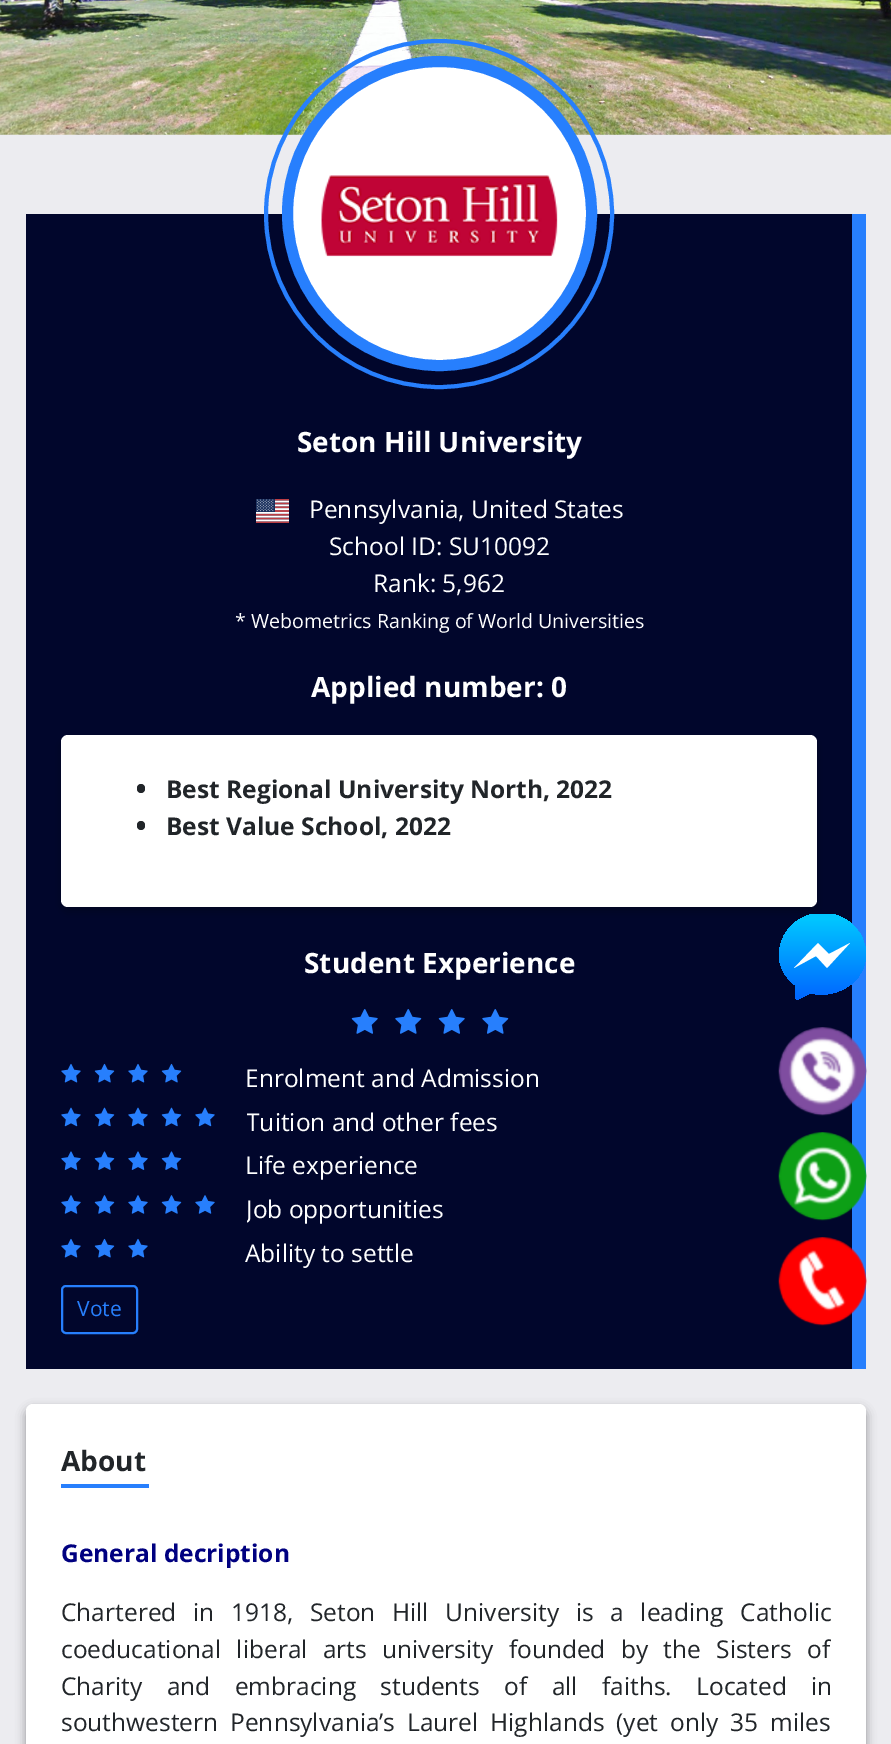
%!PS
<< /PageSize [891 1744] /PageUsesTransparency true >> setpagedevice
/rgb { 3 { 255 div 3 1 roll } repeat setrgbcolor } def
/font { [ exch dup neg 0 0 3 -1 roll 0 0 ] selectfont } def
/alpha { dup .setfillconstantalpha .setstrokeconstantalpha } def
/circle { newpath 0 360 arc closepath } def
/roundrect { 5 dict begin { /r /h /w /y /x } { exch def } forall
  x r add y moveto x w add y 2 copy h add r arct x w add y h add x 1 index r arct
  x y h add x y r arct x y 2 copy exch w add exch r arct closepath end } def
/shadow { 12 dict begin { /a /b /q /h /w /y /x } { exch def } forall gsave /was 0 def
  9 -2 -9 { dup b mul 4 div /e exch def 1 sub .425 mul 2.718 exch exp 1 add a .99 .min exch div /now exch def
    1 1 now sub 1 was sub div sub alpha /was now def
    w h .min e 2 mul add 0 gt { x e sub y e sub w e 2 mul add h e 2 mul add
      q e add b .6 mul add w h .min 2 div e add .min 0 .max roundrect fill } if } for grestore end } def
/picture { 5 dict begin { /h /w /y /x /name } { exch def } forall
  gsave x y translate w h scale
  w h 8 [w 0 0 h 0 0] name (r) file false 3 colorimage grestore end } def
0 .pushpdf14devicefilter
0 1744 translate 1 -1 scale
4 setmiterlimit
236 236 240 rgb
0 0 891 1744 rectfill
(img/1.rgb) 0 0 891 135 picture
1 6 44 rgb
26 214 826 1155 rectfill
39 127 253 rgb
852 214 14 1155 rectfill
4 setlinewidth
439 214 173 circle stroke
255 255 255 rgb
439.5 213.5 152 circle gsave fill grestore
39 127 253 rgb
11 setlinewidth
stroke
(img/2.rgb) 321 175 237 82 picture
(img/3.rgb) 256 499 33 24 picture
0 0 0 rgb
61 740 756 172 7 5 0.23 shadow
255 255 255 rgb
61 735 756 172 7 roundrect fill
33 37 41 rgb
137 784 8 9 4 roundrect fill
137 821 8 9 4 roundrect fill
(img/4.rgb) 351 1009 158 25 picture
(img/5.rgb) 61 1063 121 20 picture
(img/6.rgb) 61 1107 154 20 picture
(img/7.rgb) 61 1151 121 19 picture
(img/8.rgb) 61 1195 154 19 picture
(img/9.rgb) 61 1238 87 20 picture
39 127 253 rgb
2 setlinewidth
62 1286 75 47 4 roundrect stroke
0 0 0 rgb
26 1409 840 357 7 5 0.23 shadow
26 1409 840 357 7 5 0.16 shadow
255 255 255 rgb
26 1404 840 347 7 roundrect fill
39 127 253 rgb
61 1484 88 4 rectfill
gsave
779 914 87 87 rectclip
gsave 795 985 moveto 760 958 788 906 831 914 curveto 842 916 852 922 858 931 curveto 865 940 867 951 865 962 curveto 860 986 833 999 810 993 curveto 797 1000 lineto 795 998 lineto closepath clip newpath
<< /ShadingType 2 /ColorSpace /DeviceRGB /Coords [823 919 823 997] /Extend [true true] /Function << /FunctionType 2 /Domain [0 1] /C0 [0 0.776 1] /C1 [0 0.408 1] /N 1 >> >> shfill grestore
grestore
255 255 255 rgb
818 943 moveto 794 968 lineto 816 956 lineto 827 968 lineto 850 943 lineto 829 954 lineto closepath fill
(img/10.rgb) 778 1027 89 89 picture
(img/11.rgb) 778 1132 89 89 picture
(img/12.rgb) 778 1237 89 89 picture
/OpenSans-Bold 28 font
297 452 moveto (Seton Hill University) show
/OpenSans-Regular 24.5 font
[
  [(Pennsylvania, United States) 309 518]
  [(School ID: SU10092) 329 555]
  [(Rank: 5,962) 373 592]
] { aload pop moveto show } forall
/OpenSans-Regular 19.6 font
235 628 moveto (* Webometrics Ranking of World Universities) show
/OpenSans-Bold 28 font
311 697 moveto (Applied number: 0) show
/OpenSans-Bold 24.5 font
33 37 41 rgb
166 798 moveto (Best Regional University North, 2022) show
166 835 moveto (Best Value School, 2022) show
/OpenSans-Bold 28 font
255 255 255 rgb
304 973 moveto (Student Experience) show
/OpenSans-Regular 24.5 font
245 1087 moveto (Enrolment and Admission) show
gsave
247 1103 570 36 rectclip
246 1131 moveto (Tuition and other fees) show
grestore
245 1174 moveto (Life experience) show
gsave
247 1190 570 37 rectclip
246 1218 moveto (Job opportunities) show
grestore
245 1262 moveto (Ability to settle) show
/OpenSans-Regular 21 font
39 127 253 rgb
77 1316 moveto (Vote) show
/OpenSans-Bold 28 font
33 37 41 rgb
61 1471 moveto (About) show
/OpenSans-Bold 24.5 font
0 0 128 rgb
61 1562 moveto (General decription) show
/OpenSans-Regular 24.5 font
33 37 41 rgb
61 1621 moveto 10.25 0 32 (Chartered in 1918, Seton Hill University is a leading Catholic) widthshow
gsave
61 1505 770 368 rectclip
61 1658 moveto 9 0 32 (coeducational liberal arts university founded by the Sisters of) widthshow
grestore
61 1695 moveto 18 0 32 (Charity and embracing students of all faiths. Located in) widthshow
61 1731 moveto 5.5 0 32 (southwestern Pennsylvania’s Laurel Highlands \(yet only 35 miles) widthshow
.poppdf14devicefilter showpage
